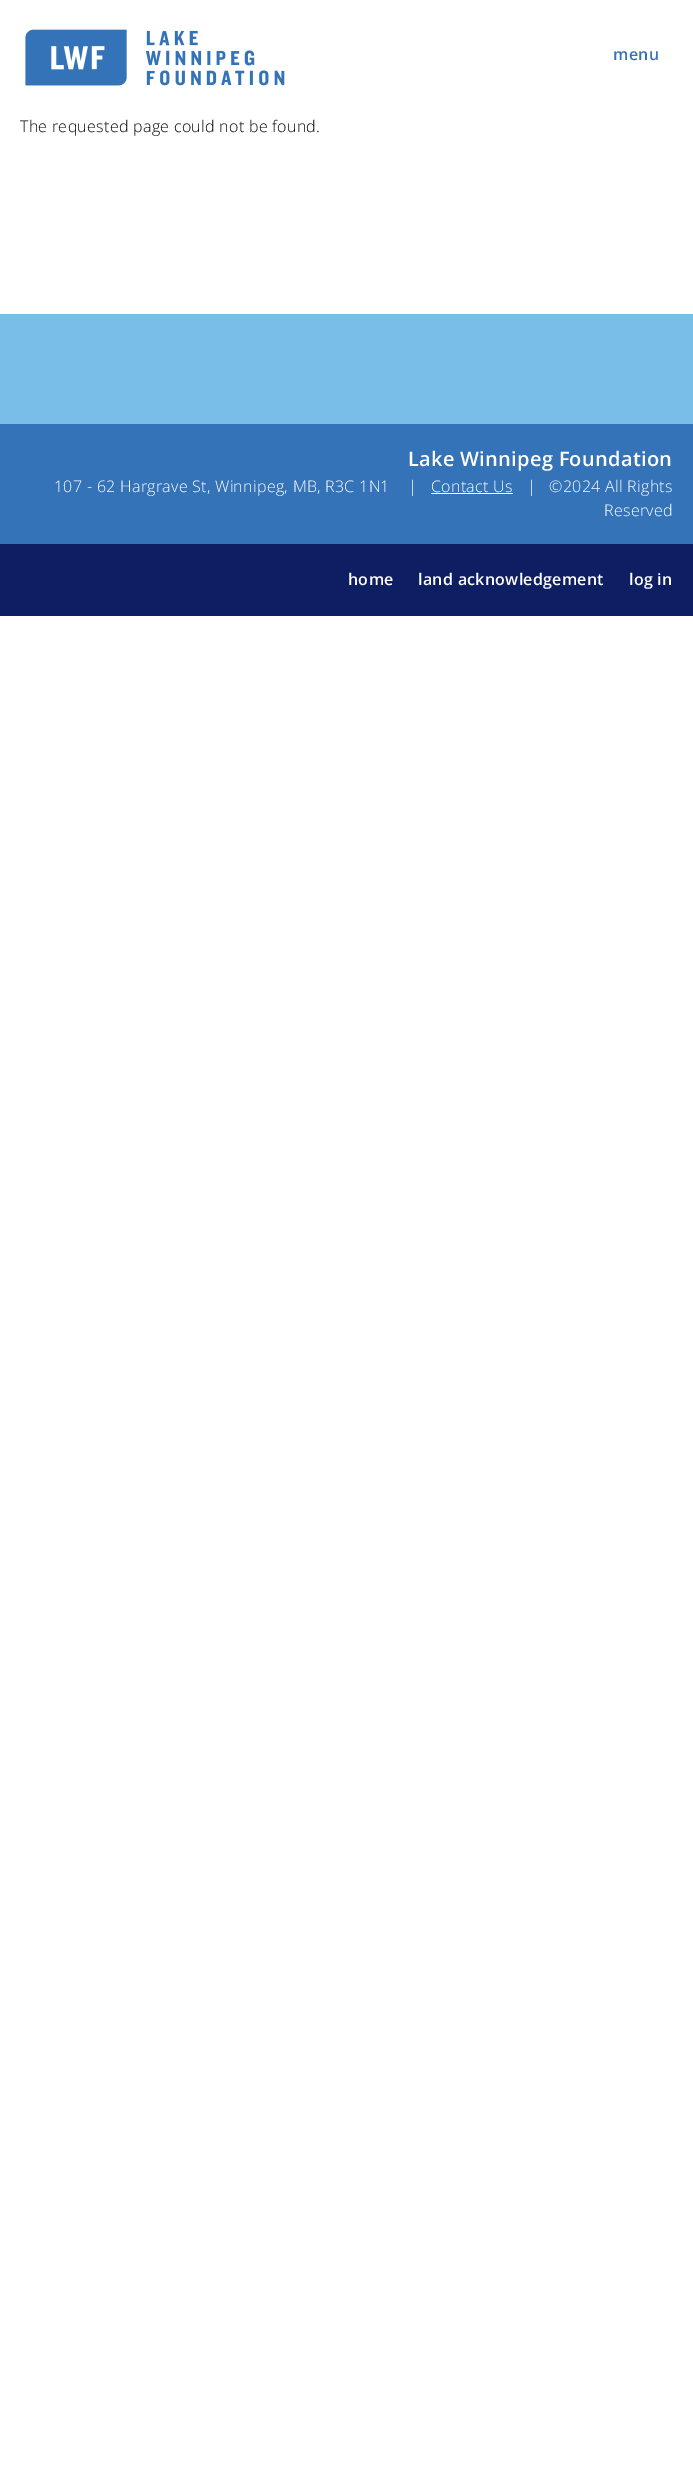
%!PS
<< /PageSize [693 2484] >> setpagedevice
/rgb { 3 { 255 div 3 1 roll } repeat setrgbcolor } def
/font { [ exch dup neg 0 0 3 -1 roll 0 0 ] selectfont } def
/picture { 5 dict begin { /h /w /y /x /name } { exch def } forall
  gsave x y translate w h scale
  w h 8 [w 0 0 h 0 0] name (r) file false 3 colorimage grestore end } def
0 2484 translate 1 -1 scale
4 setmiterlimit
255 255 255 rgb
0 0 693 2484 rectfill
(img/1.rgb) 25 29 260 57 picture
[
  [0 314 693 110 121 189 233]
  [0 424 693 120 53 115 185]
  [431 493 82 1 255 255 255]
  [0 544 693 72 13 30 98]
] { aload pop rgb rectfill } forall
/OpenSans-SemiBold 16 font
53 115 185 rgb
613 60 moveto 0.3 0 (menu) ashow
/OpenSans-Light 16 font
8 8 8 rgb
20 132 moveto 0.3 0 (The requested page could not be found.) ashow
/OpenSans-SemiBold 20 font
255 255 255 rgb
408 466 moveto 0.3 0 (Lake Winnipeg Foundation) ashow
/OpenSans-Light 16 font
54 492 moveto 0.3 0 (107 - 62 Hargrave St, Winnipeg, MB, R3C 1N1    |) ashow
431 492 moveto 0.3 0 (Contact Us) ashow
527 492 moveto 0.3 0 (|   ©2024 All Rights) ashow
604 516 moveto 0.3 0 (Reserved) ashow
/OpenSans-SemiBold 16 font
348 585 moveto 0.3 0 (home) ashow
418 585 moveto 0.3 0 (land acknowledgement) ashow
629 585 moveto 0.3 0 (log in) ashow
showpage
